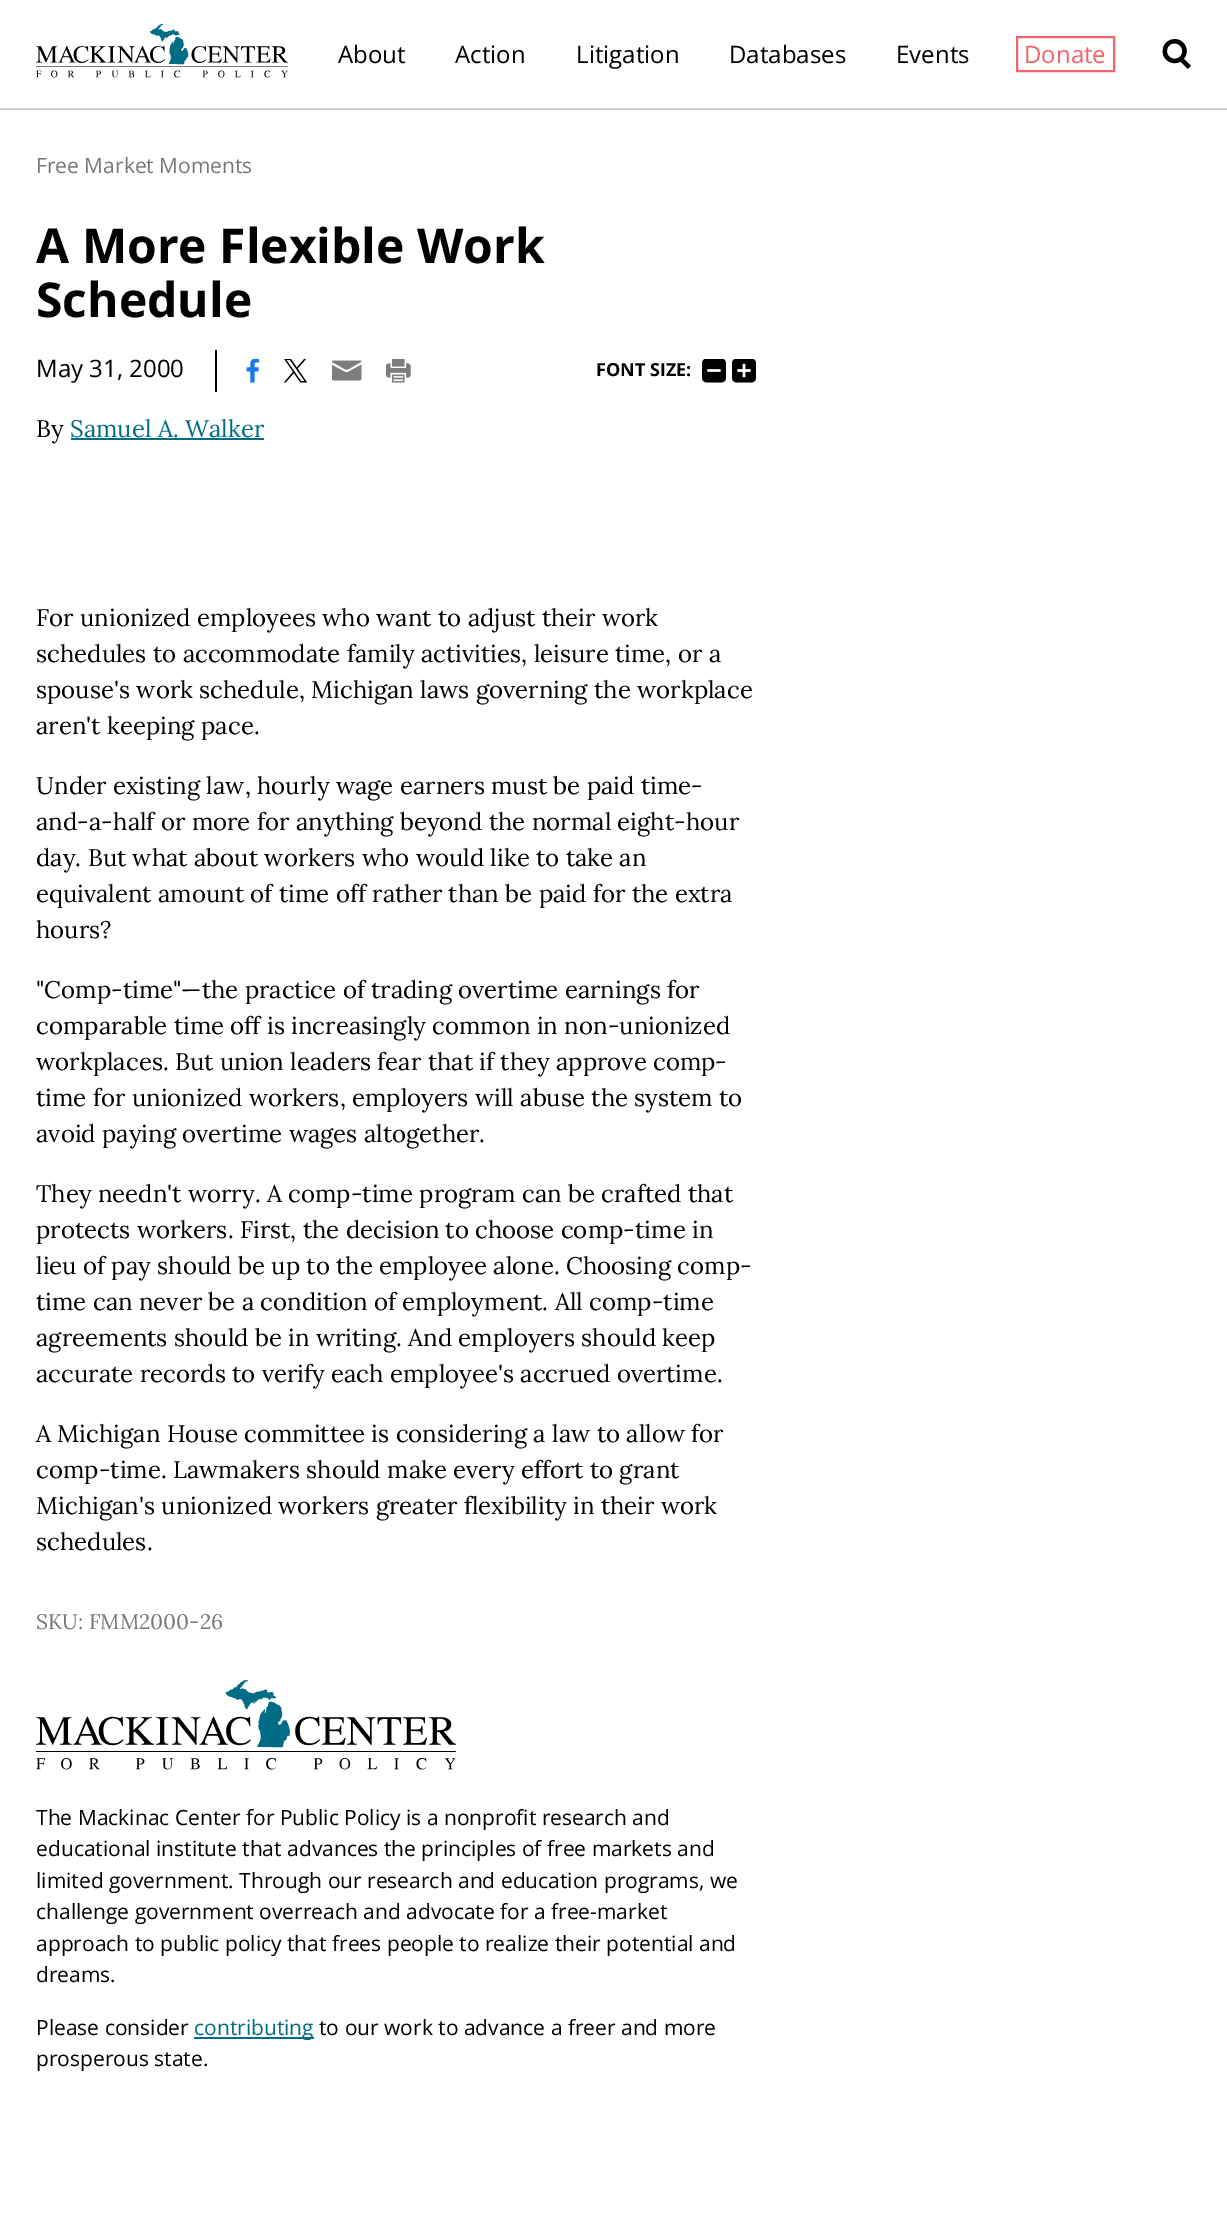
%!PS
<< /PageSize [1227 2216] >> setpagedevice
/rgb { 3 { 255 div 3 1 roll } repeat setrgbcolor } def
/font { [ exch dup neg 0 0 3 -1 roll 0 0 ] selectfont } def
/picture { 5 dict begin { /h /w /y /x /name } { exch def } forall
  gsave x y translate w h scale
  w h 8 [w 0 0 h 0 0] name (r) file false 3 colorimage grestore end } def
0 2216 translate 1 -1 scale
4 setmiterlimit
255 255 255 rgb
0 0 1227 2216 rectfill
204 204 204 rgb
0 108 1227 2 rectfill
(img/1.rgb) 36 24 252 54 picture
242 100 105 rgb
2 setlinewidth
1017 37 97 34 rectstroke
(img/2.rgb) 1162 39 29 30 picture
0 0 0 rgb
215 350 2 42 rectfill
(img/3.rgb) 246 359 14 24 picture
(img/4.rgb) 284 359 24 24 picture
(img/5.rgb) 332 360 30 21 picture
(img/6.rgb) 386 359 25 24 picture
(img/7.rgb) 702 359 24 24 picture
(img/8.rgb) 732 359 24 24 picture
0 108 133 rgb
71 438 193 2 rectfill
(img/9.rgb) 36 1680 420 90 picture
194 2037 120 2 rectfill
/OpenSans-Regular 24 font
0 0 0 rgb
[
  [(About) 338 63]
  [(Action) 455 63]
  [(Litigation) 576 63]
  [(Databases) 729 63]
  [(Events) 896 63]
] { aload pop moveto show } forall
242 100 105 rgb
1024 63 moveto (Donate) show
/OpenSans-Regular 21 font
119 119 119 rgb
36 173 moveto (Free Market Moments) show
/OpenSans-Bold 48 font
0 0 0 rgb
36 263 moveto (A More Flexible Work) show
36 317 moveto (Schedule) show
/OpenSans-Regular 24 font
36 377 moveto (May 31, 2000) show
/OpenSans-Bold 18 font
596 376 moveto (FONT SIZE:) show
/Lora-Regular 24 font
36 437 moveto (By) show
0 108 133 rgb
70 437 moveto (Samuel A. Walker) show
0 0 0 rgb
[
  [(For unionized employees who want to adjust their work) 36 626]
  [(schedules to accommodate family activities, leisure time, or a) 36 662]
  [(spouse's work schedule, Michigan laws governing the workplace) 36 698]
  [(aren't keeping pace.) 36 734]
  [(Under existing law, hourly wage earners must be paid time-) 36 794]
  [(and-a-half or more for anything beyond the normal eight-hour) 36 830]
  [(day. But what about workers who would like to take an) 36 866]
  [(equivalent amount of time off rather than be paid for the extra) 36 902]
  [(hours?) 36 938]
  [("Comp-time"—the practice of trading overtime earnings for) 36 998]
  [(comparable time off is increasingly common in non-unionized) 36 1034]
  [(workplaces. But union leaders fear that if they approve comp-) 36 1070]
  [(time for unionized workers, employers will abuse the system to) 36 1106]
  [(avoid paying overtime wages altogether.) 36 1142]
  [(They needn't worry. A comp-time program can be crafted that) 36 1202]
  [(protects workers. First, the decision to choose comp-time in) 36 1238]
  [(lieu of pay should be up to the employee alone. Choosing comp-) 36 1274]
  [(time can never be a condition of employment. All comp-time) 36 1310]
  [(agreements should be in writing. And employers should keep) 36 1346]
  [(accurate records to verify each employee's accrued overtime.) 36 1382]
  [(A Michigan House committee is considering a law to allow for) 36 1442]
  [(comp-time. Lawmakers should make every effort to grant) 36 1478]
  [(Michigan's unionized workers greater flexibility in their work) 36 1514]
  [(schedules.) 36 1550]
] { aload pop moveto show } forall
/Lora-Regular 21 font
119 119 119 rgb
36 1629 moveto (SKU: FMM2000-26) show
/OpenSans-Regular 21 font
0 0 0 rgb
[
  [(The Mackinac Center for Public Policy is a nonprofit research and) 36 1825]
  [(educational institute that advances the principles of free markets and) 36 1856]
  [(limited government. Through our research and education programs, we) 36 1888]
  [(challenge government overreach and advocate for a free-market) 36 1919]
  [(approach to public policy that frees people to realize their potential and) 36 1951]
  [(dreams.) 36 1982]
  [(Please consider) 36 2035]
] { aload pop moveto show } forall
0 108 133 rgb
194 2035 moveto (contributing) show
0 0 0 rgb
319 2035 moveto (to our work to advance a freer and more) show
36 2066 moveto (prosperous state.) show
showpage
